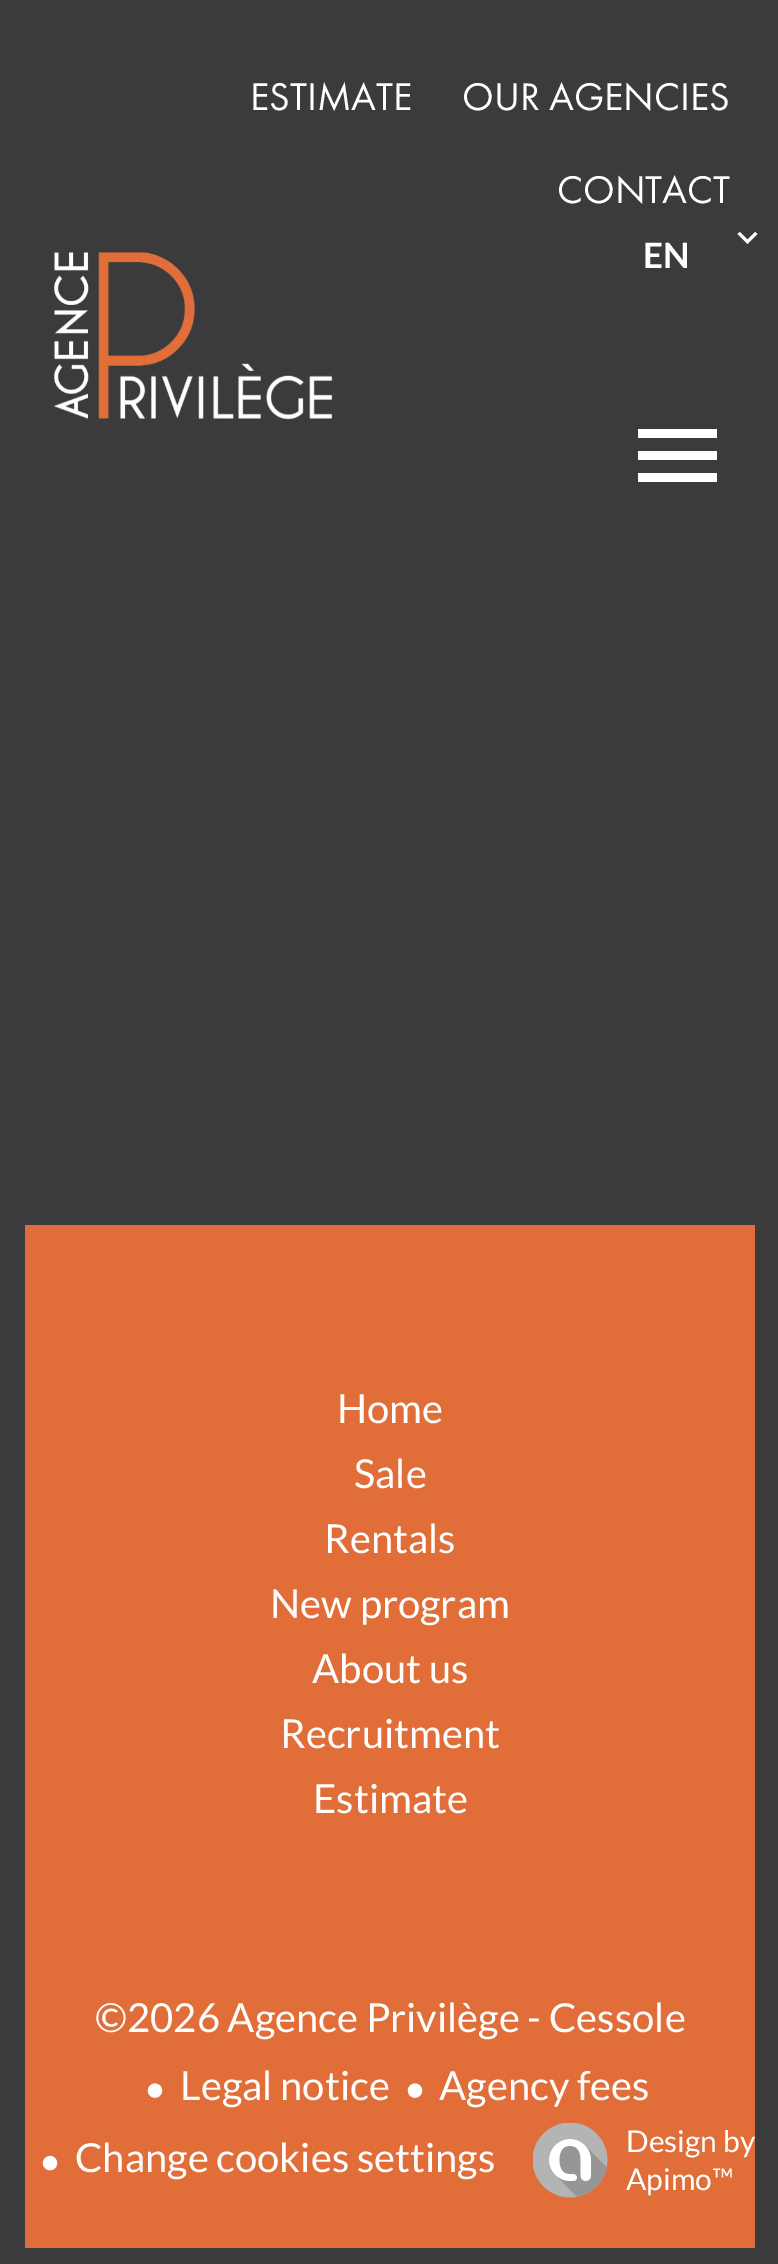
%!PS
<< /PageSize [778 2264] >> setpagedevice
/rgb { 3 { 255 div 3 1 roll } repeat setrgbcolor } def
/font { [ exch dup neg 0 0 3 -1 roll 0 0 ] selectfont } def
/picture { 5 dict begin { /h /w /y /x /name } { exch def } forall
  gsave x y translate w h scale
  w h 8 [w 0 0 h 0 0] name (r) file false 3 colorimage grestore end } def
0 2264 translate 1 -1 scale
4 setmiterlimit
59 58 60 rgb
0 0 778 2264 rectfill
255 255 255 rgb
740 232 moveto 747.5 239.5 lineto 755 232 lineto 757.5 234 lineto 747.5 244 lineto 737.5 234 lineto closepath fill
638 429 moveto 717 429 lineto 717 438 lineto 638 438 lineto closepath 638 451 moveto 717 451 lineto 717 460 lineto 638 460 lineto closepath 638 473 moveto 717 473 lineto 717 482 lineto 638 482 lineto closepath fill
(img/1.rgb) 54 252 279 168 picture
225 110 56 rgb
25 1225 730 1023 rectfill
(img/2.rgb) 147 2083 16 15 picture
(img/2.rgb) 407 2083 16 15 picture
(img/3.rgb) 42 2155 16 16 picture
(img/4.rgb) 533 2123 75 75 picture
/FuturaPT-Regular 40 font
255 255 255 rgb
[
  [(ESTIMATE) 250 110]
  [(OUR AGENCIES) 462 110]
  [(CONTACT) 557 203]
] { aload pop moveto show } forall
/Lato-Bold 35 font
643 268 moveto (EN) show
/Lato-Regular 40 font
[
  [(Home) 337 1423]
  [(Sale) 354 1488]
  [(Rentals) 324 1553]
  [(New program) 270 1618]
  [(About us) 312 1683]
  [(Recruitment) 280 1748]
  [(Estimate) 313 1813]
  [(©2026 Agence Privilège - Cessole) 95 2032]
  [(Legal notice) 180 2100]
  [(Agency fees) 439 2100]
  [(Change cookies settings) 75 2172]
] { aload pop moveto show } forall
/Lato-Regular 30 font
626 2152 moveto (Design by) show
626 2190 moveto (Apimo™) show
showpage
